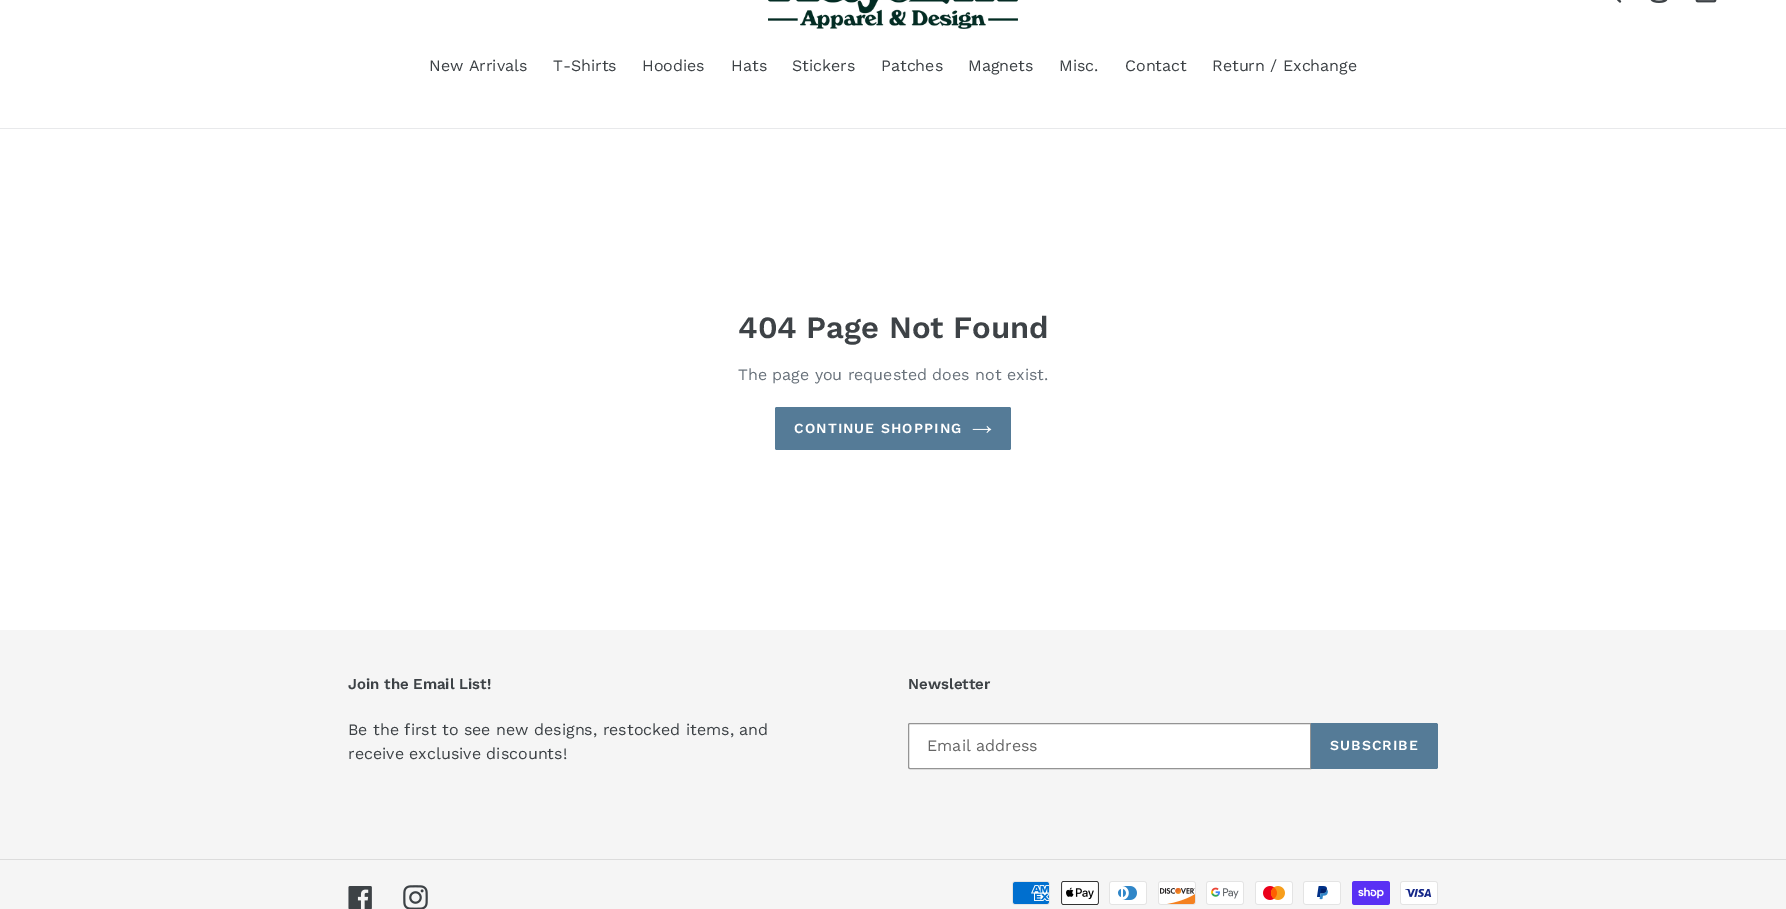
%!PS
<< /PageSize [1786 909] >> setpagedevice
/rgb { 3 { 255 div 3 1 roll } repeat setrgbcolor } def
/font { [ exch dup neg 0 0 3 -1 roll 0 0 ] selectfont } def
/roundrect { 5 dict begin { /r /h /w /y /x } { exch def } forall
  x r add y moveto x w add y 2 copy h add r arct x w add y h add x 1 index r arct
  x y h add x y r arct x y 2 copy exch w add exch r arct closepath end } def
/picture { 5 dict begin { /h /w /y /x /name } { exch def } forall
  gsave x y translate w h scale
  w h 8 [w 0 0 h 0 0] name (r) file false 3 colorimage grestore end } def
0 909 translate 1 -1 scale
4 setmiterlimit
255 255 255 rgb
0 0 1786 909 rectfill
(img/1.rgb) 768 0 250 29 picture
(img/2.rgb) 1617 0 5 3 picture
(img/3.rgb) 1650 0 18 3 picture
(img/4.rgb) 1695 0 22 3 picture
232 233 235 rgb
0 128 1786 1 rectfill
85 123 151 rgb
775 407 236 43 2 roundrect fill
(img/5.rgb) 972 425 20 8 picture
245 245 245 rgb
0 630 1786 279 rectfill
255 255 255 rgb
910 723.5 moveto 1310.5 723.5 lineto 1310.5 768.5 lineto 910 768.5 lineto 909 768.5 908.5 768 908.5 767 curveto 908.5 725 lineto 908.5 724 909 723.5 910 723.5 curveto closepath gsave fill grestore
148 148 148 rgb
stroke
85 123 151 rgb
1311 723 moveto 1436 723 lineto 1437 723 1438 724 1438 725 curveto 1438 767 lineto 1438 768 1437 769 1436 769 curveto 1311 769 lineto closepath fill
220 220 220 rgb
0 859 1786 1 rectfill
(img/6.rgb) 348 886 24 23 picture
(img/7.rgb) 403 885 25 24 picture
(img/8.rgb) 1012 881 38 24 picture
(img/9.rgb) 1061 881 38 24 picture
(img/10.rgb) 1109 881 38 24 picture
(img/11.rgb) 1158 881 38 24 picture
(img/12.rgb) 1206 881 38 24 picture
(img/13.rgb) 1255 881 38 24 picture
(img/14.rgb) 1303 881 38 24 picture
(img/15.rgb) 1352 881 38 24 picture
(img/16.rgb) 1400 881 38 24 picture
/WorkSans-Regular 16 font
61 66 70 rgb
[
  [(New Arrivals) 429 71]
  [(T-Shirts) 553 71]
  [(Hoodies) 642 71]
  [(Hats) 731 71]
  [(Stickers) 792 71]
  [(Patches) 881 71]
  [(Magnets) 968 71]
  [(Misc.) 1059 71]
  [(Contact) 1125 71]
  [(Return / Exchange) 1212 71]
] { aload pop moveto show } forall
/WorkSans-SemiBold 31 font
738 338 moveto (404 Page Not Found) show
/WorkSans-Regular 16 font
105 114 123 rgb
738 380 moveto (The page you requested does not exist.) show
/WorkSans-SemiBold 14 font
255 255 255 rgb
794 433 moveto 1.1 0 (CONTINUE SHOPPING) ashow
/WorkSans-SemiBold 15 font
61 66 70 rgb
348 689 moveto (Join the Email List!) show
/WorkSans-Regular 16 font
348 735 moveto (Be the first to see new designs, restocked items, and) show
348 759 moveto (receive exclusive discounts!) show
/WorkSans-SemiBold 15 font
908 689 moveto (Newsletter) show
/WorkSans-Regular 16 font
102 102 102 rgb
927 751 moveto (Email address) show
/WorkSans-SemiBold 14 font
255 255 255 rgb
1330 750 moveto 1.1 0 (SUBSCRIBE) ashow
showpage
